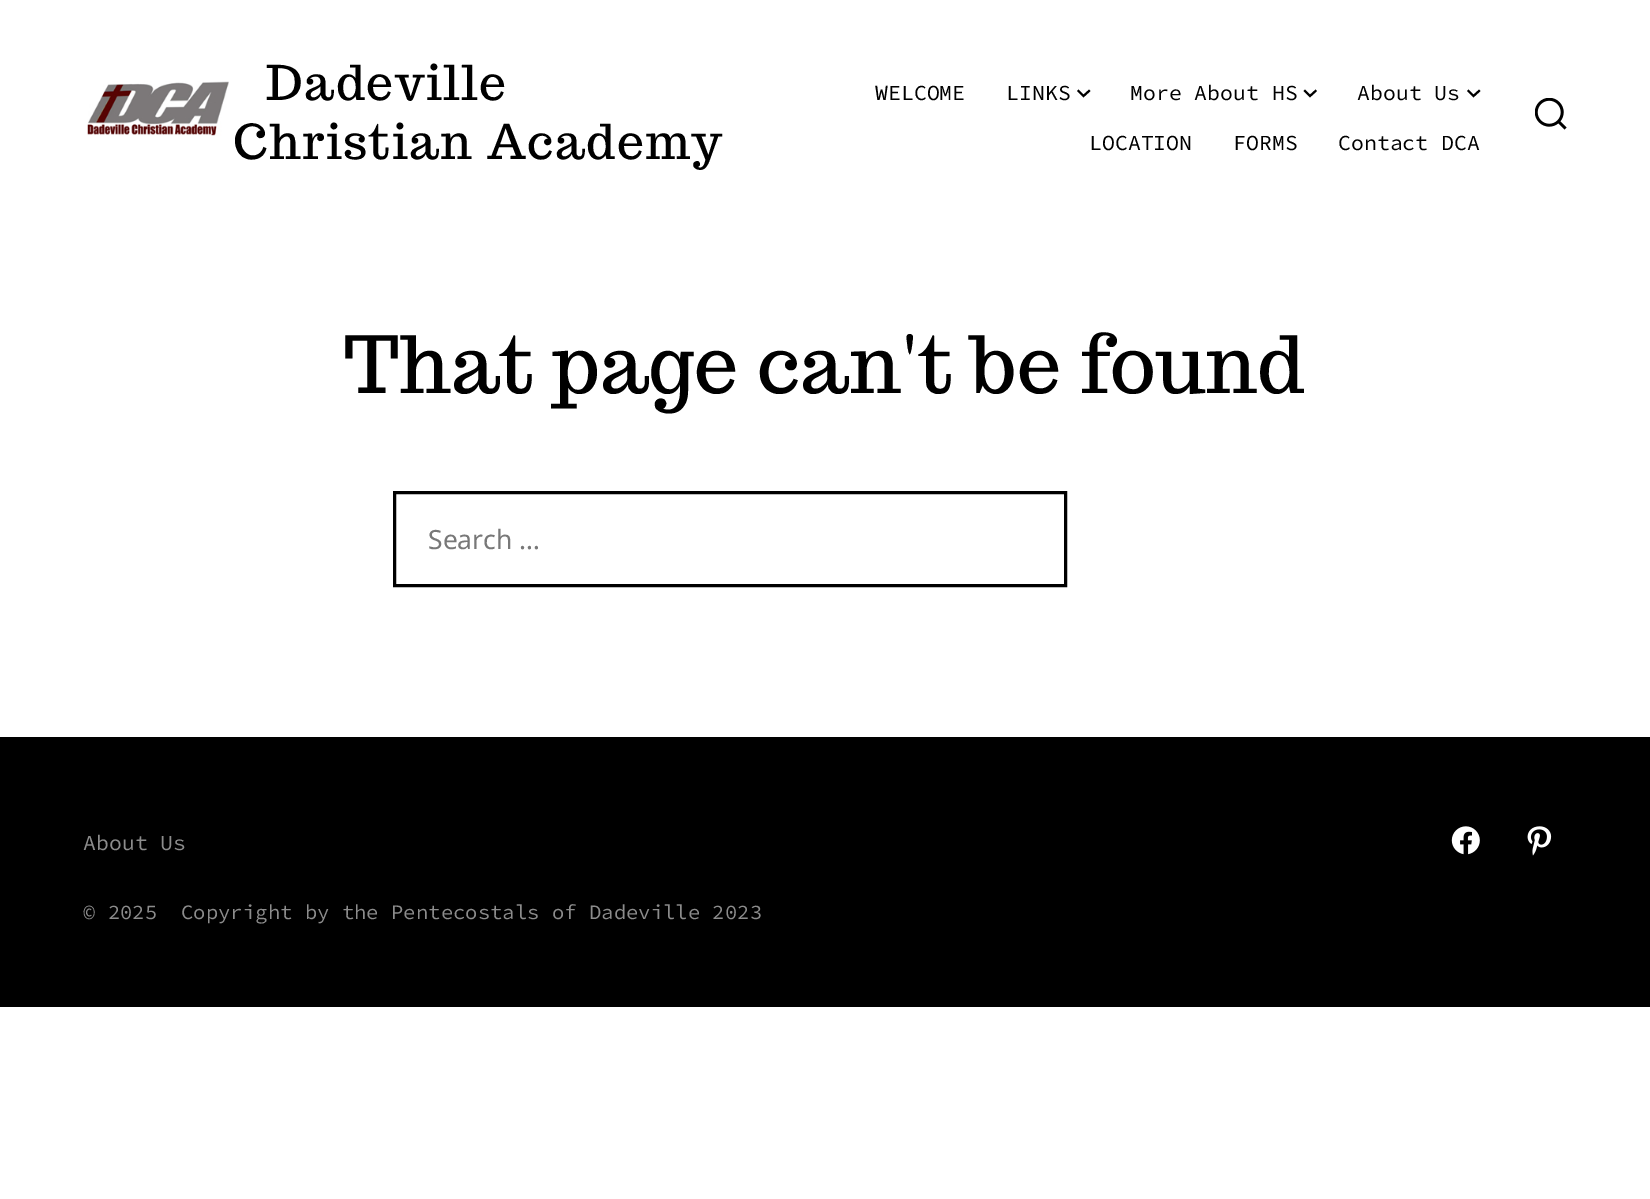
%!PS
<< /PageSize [1650 1199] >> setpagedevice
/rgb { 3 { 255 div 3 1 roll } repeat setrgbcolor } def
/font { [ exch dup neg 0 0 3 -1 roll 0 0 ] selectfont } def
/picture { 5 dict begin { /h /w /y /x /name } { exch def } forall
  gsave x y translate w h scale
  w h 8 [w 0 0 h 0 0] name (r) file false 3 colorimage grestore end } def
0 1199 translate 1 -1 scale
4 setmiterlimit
255 255 255 rgb
0 0 1650 1199 rectfill
(img/1.rgb) 87 81 142 55 picture
0 0 0 rgb
2 setlinewidth
2 setlinecap
1078.5 91 moveto 1083.5 96 lineto 1089 91 lineto stroke
1305 91 moveto 1310 96 lineto 1315.5 91 lineto stroke
1468.5 91 moveto 1473.5 96 lineto 1479 91 lineto stroke
(img/2.rgb) 1535 98 32 32 picture
3 setlinewidth
0 setlinecap
394.5 492.5 671 93 rectstroke
0 737 1650 270 rectfill
(img/3.rgb) 1451 826 29 29 picture
(img/4.rgb) 1527 826 25 30 picture
/Trocchi-Regular 48 font
266 100 moveto 1.6 0 (Dadeville) ashow
233 159 moveto 1.6 0 (Christian Academy) ashow
/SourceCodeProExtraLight-Regular 21.5 font
[
  [(WELCOME) 875 100]
  [(LINKS) 1006 100]
  [(More About HS) 1130 100]
  [(About Us) 1357 100]
  [(LOCATION) 1089 150]
  [(FORMS) 1233 150]
  [(Contact DCA) 1338 150]
] { aload pop moveto show } forall
/Trocchi-Regular 78.75 font
344 393 moveto (That page can't be found) show
/NotoSans-Regular 26.5 font
120 120 120 rgb
428 549 moveto (Search …) show
/SourceCodeProExtraLight-Regular 21.5 font
140 140 140 rgb
83 850 moveto (About Us) show
/SourceCodeProExtraLight-Regular 20.6 font
83 919 moveto (© 2025) show
181 919 moveto (Copyright by the Pentecostals of Dadeville 2023) show
showpage
